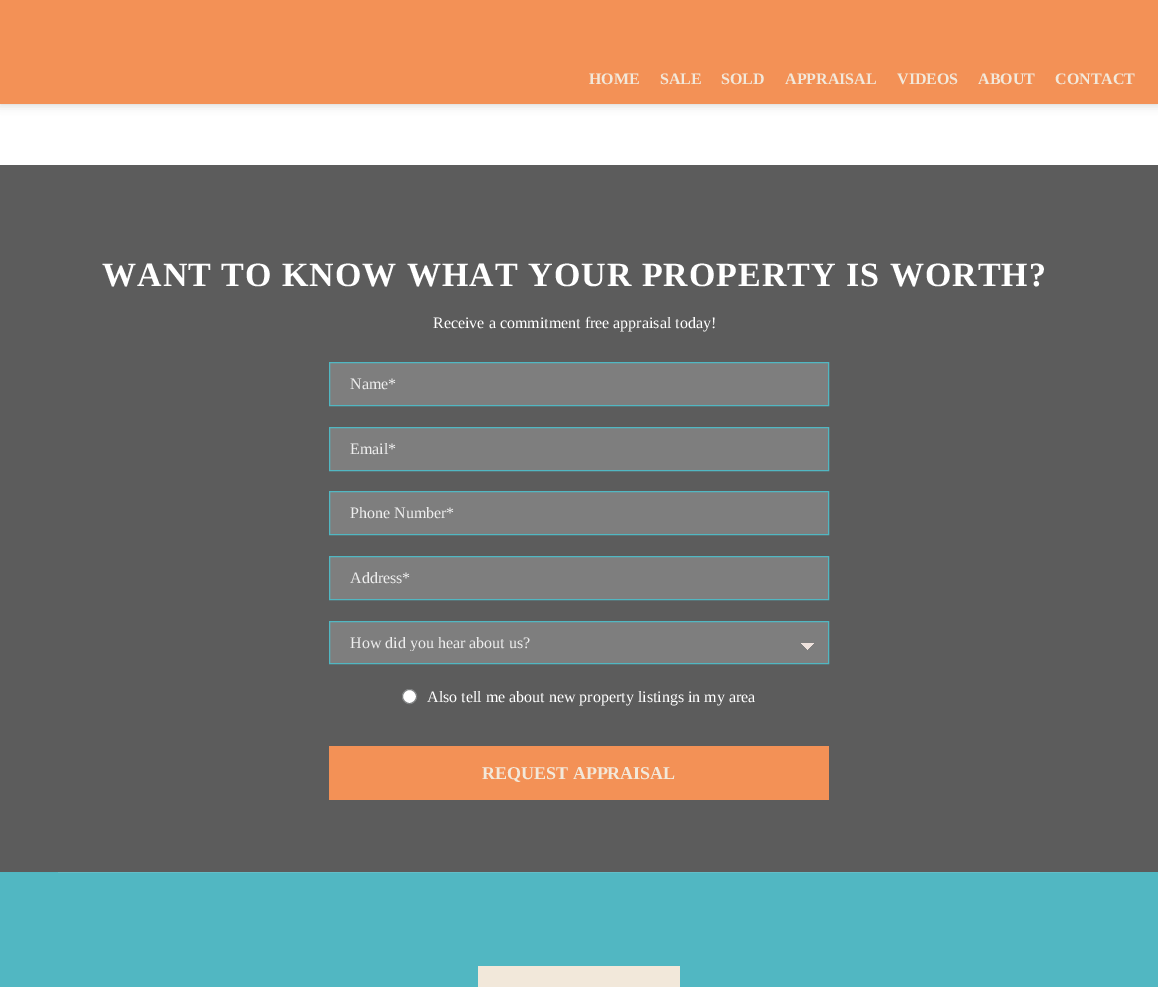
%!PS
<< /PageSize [1158 987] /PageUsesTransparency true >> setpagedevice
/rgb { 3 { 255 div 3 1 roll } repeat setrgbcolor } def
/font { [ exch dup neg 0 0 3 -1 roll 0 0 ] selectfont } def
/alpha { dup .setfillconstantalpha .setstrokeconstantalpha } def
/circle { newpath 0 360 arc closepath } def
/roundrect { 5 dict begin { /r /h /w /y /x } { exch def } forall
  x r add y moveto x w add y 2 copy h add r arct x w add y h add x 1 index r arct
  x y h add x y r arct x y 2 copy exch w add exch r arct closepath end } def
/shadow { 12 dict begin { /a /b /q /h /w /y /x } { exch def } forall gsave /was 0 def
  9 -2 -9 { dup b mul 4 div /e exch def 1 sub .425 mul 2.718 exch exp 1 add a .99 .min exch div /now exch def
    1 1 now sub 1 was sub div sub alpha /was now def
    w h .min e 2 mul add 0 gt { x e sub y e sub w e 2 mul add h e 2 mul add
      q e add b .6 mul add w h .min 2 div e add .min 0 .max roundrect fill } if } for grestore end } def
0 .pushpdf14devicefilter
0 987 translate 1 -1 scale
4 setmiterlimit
255 255 255 rgb
0 0 1158 987 rectfill
17 16 0 rgb
0 0 1158 104 0 5 0.22 shadow
243 145 86 rgb
0 0 1158 104 rectfill
92 92 92 rgb
0 165 1158 707 rectfill
126 126 126 rgb
329.5 362.5 moveto 828.5 362.5 lineto 828.5 405.5 lineto 329.5 405.5 lineto closepath gsave fill grestore
81 183 194 rgb
stroke
126 126 126 rgb
329.5 427.5 moveto 828.5 427.5 lineto 828.5 470.5 lineto 329.5 470.5 lineto closepath gsave fill grestore
81 183 194 rgb
stroke
126 126 126 rgb
329.5 491.5 moveto 828.5 491.5 lineto 828.5 534.5 lineto 329.5 534.5 lineto closepath gsave fill grestore
81 183 194 rgb
stroke
126 126 126 rgb
329.5 556.5 moveto 828.5 556.5 lineto 828.5 599.5 lineto 329.5 599.5 lineto closepath gsave fill grestore
81 183 194 rgb
stroke
126 126 126 rgb
330 622 498 41 rectfill
gsave 808 643 moveto 815 643 lineto 815 650 lineto 808 650 lineto closepath clip newpath
<< /ShadingType 2 /ColorSpace /DeviceRGB /Coords [808 643 815 650] /Extend [true true] /Function << /FunctionType 3 /Domain [0 1] /Functions [<< /FunctionType 2 /Domain [0 1] /C0 [0.933 0.886 0.867] /C1 [0.933 0.886 0.867] /N 1 >> << /FunctionType 2 /Domain [0 1] /C0 [0.494 0.494 0.494] /C1 [0.494 0.494 0.494] /N 1 >>] /Bounds [0.5] /Encode [0 1 0 1] >> >> shfill grestore
gsave 800 643 moveto 808 643 lineto 808 650 lineto 800 650 lineto closepath clip newpath
<< /ShadingType 2 /ColorSpace /DeviceRGB /Coords [800 650 808 642] /Extend [true true] /Function << /FunctionType 3 /Domain [0 1] /Functions [<< /FunctionType 2 /Domain [0 1] /C0 [0.494 0.494 0.494] /C1 [0.494 0.494 0.494] /N 1 >> << /FunctionType 2 /Domain [0 1] /C0 [0.933 0.886 0.867] /C1 [0.933 0.886 0.867] /N 1 >>] /Bounds [0.5] /Encode [0 1 0 1] >> >> shfill grestore
81 183 194 rgb
329.5 621.5 499 42 rectstroke
255 255 255 rgb
409.5 696.5 7 circle gsave fill grestore
124 126 127 rgb
stroke
[
  [329 746 500 54 243 145 86]
  [0 872 1158 115 81 183 194]
  [58 872 1042 1 98 190 200]
  [478 966 202 21 242 232 218]
] { aload pop rgb rectfill } forall
/LiberationSerif-Bold 16 font
[
  [(HOME) 589 84]
  [(SALE) 660 84]
  [(SOLD) 721 84]
  [(APPRAISAL) 785 84]
  [(VIDEOS) 897 84]
  [(ABOUT) 978 84]
  [(CONTACT) 1055 84]
] { aload pop moveto show } forall
/LiberationSerif-Bold 34 font
255 255 255 rgb
102 286 moveto 1 0 (WANT TO KNOW WHAT YOUR PROPERTY IS WORTH?) ashow
/LiberationSerif-Regular 16 font
433 328 moveto (Receive a commitment free appraisal today!) show
237 237 237 rgb
[
  [(Name*) 350 389]
  [(Email*) 350 454]
  [(Phone Number*) 350 518]
  [(Address*) 350 583]
] { aload pop moveto show } forall
gsave
350 634 458 17 rectclip
350 648 moveto (How did you hear about us?) show
grestore
255 255 255 rgb
427 702 moveto (Also tell me about new property listings in my area) show
/LiberationSerif-Bold 18 font
242 232 218 rgb
482 779 moveto (REQUEST APPRAISAL) show
.poppdf14devicefilter showpage
